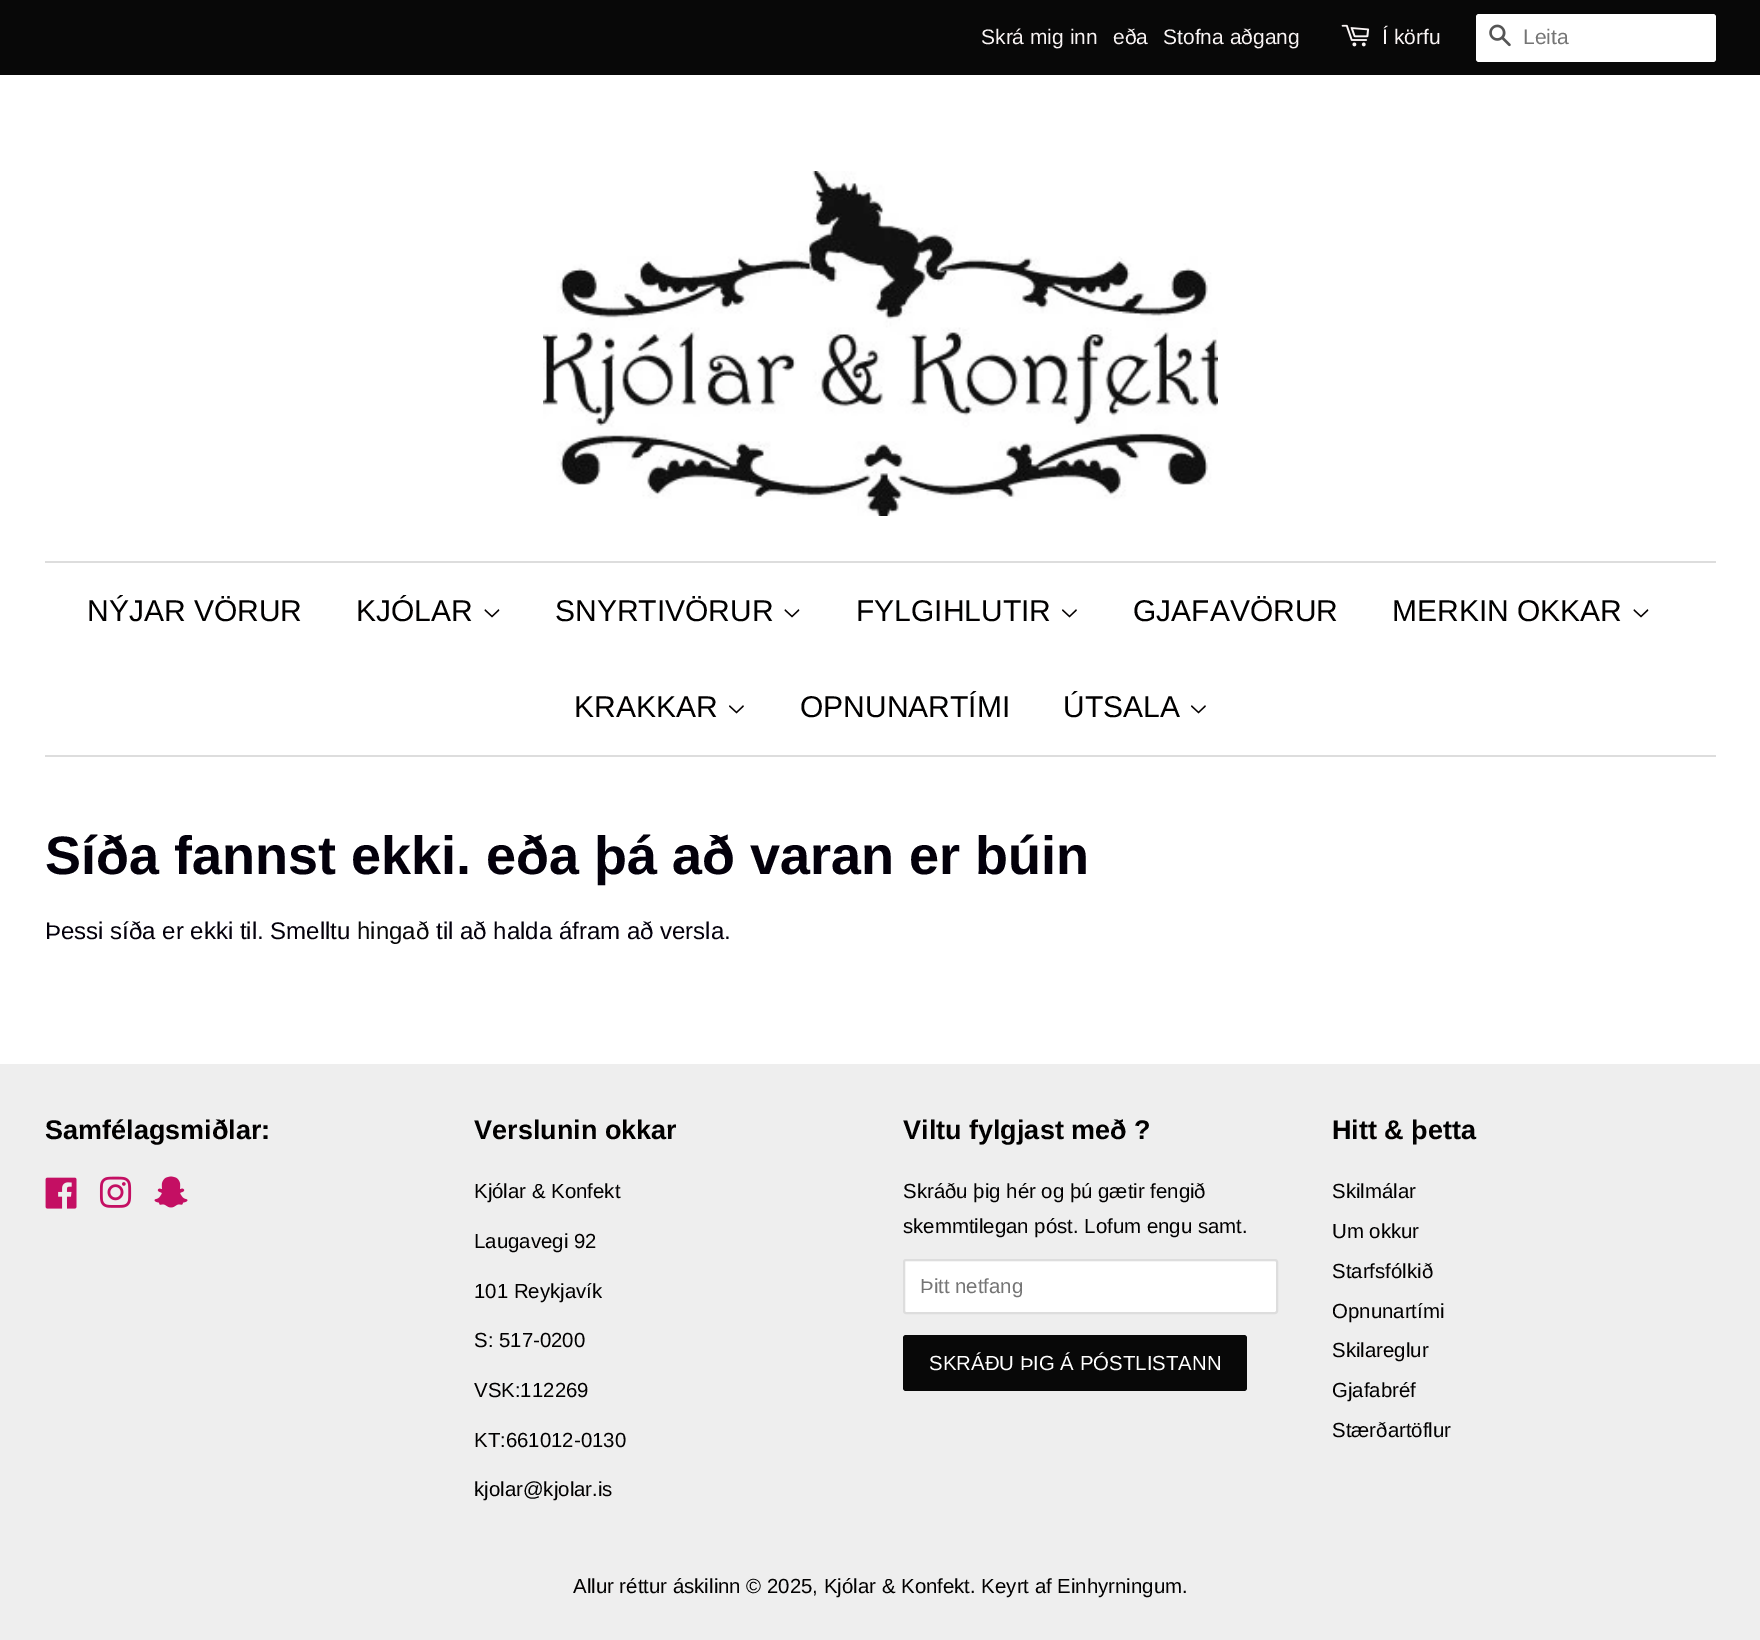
%!PS
<< /PageSize [1760 1640] >> setpagedevice
/rgb { 3 { 255 div 3 1 roll } repeat setrgbcolor } def
/font { [ exch dup neg 0 0 3 -1 roll 0 0 ] selectfont } def
/roundrect { 5 dict begin { /r /h /w /y /x } { exch def } forall
  x r add y moveto x w add y 2 copy h add r arct x w add y h add x 1 index r arct
  x y h add x y r arct x y 2 copy exch w add exch r arct closepath end } def
/picture { 5 dict begin { /h /w /y /x /name } { exch def } forall
  gsave x y translate w h scale
  w h 8 [w 0 0 h 0 0] name (r) file false 3 colorimage grestore end } def
0 1640 translate 1 -1 scale
4 setmiterlimit
255 255 255 rgb
0 0 1760 1640 rectfill
8 8 8 rgb
0 0 1760 75 rectfill
(img/1.rgb) 1341 24 29 23 picture
255 255 255 rgb
1476 14 240 48 3 roundrect fill
(img/2.rgb) 1489 24 22 23 picture
(img/3.rgb) 543 171 675 345 picture
221 221 221 rgb
45 561 1671 2 rectfill
45 755 1671 2 rectfill
(img/4.rgb) 484 609 16 9 picture
(img/4.rgb) 784 609 16 9 picture
(img/5.rgb) 1062 609 15 9 picture
(img/4.rgb) 1633 609 16 9 picture
(img/5.rgb) 729 705 15 9 picture
(img/5.rgb) 1191 705 15 9 picture
238 238 238 rgb
0 1064 1760 576 rectfill
(img/6.rgb) 45 1177 32 32 picture
(img/7.rgb) 99 1176 33 32 picture
(img/8.rgb) 154 1176 34 32 picture
255 255 255 rgb
904 1260 373 53 2 roundrect gsave fill grestore
221 221 221 rgb
2 setlinewidth
stroke
8 8 8 rgb
903 1335 344 56 3 roundrect fill
/LiberationSans-Regular 21 font
249 244 244 rgb
[
  [(Skrá mig inn) 981 44]
  [(eða) 1113 44]
  [(Stofna aðgang) 1163 44]
  [(Í körfu) 1382 44]
] { aload pop moveto show } forall
117 117 117 rgb
1523 44 moveto (Leita) show
/LiberationSans-Regular 30 font
1 0 0 rgb
[
  [(NÝJAR VÖRUR) 87 621]
  [(KJÓLAR) 356 621]
  [(SNYRTIVÖRUR) 555 621]
  [(FYLGIHLUTIR) 856 621]
  [(GJAFAVÖRUR) 1133 621]
  [(MERKIN OKKAR) 1392 621]
  [(KRAKKAR) 574 717]
  [(OPNUNARTÍMI) 800 717]
  [(ÚTSALA) 1063 717]
] { aload pop moveto show } forall
/LiberationSans-Bold 54 font
3 0 11 rgb
45 874 moveto (Síða fannst ekki. eða þá að varan er búin) show
/LiberationSans-Regular 24 font
45 939 moveto (Þessi síða er ekki til. Smelltu) show
8 8 8 rgb
357 939 moveto (hingað) show
3 0 11 rgb
436 939 moveto (til að halda áfram að versla.) show
/LiberationSans-Bold 27 font
1 0 0 rgb
45 1139 moveto (Samfélagsmiðlar:) show
474 1139 moveto (Verslunin okkar) show
/LiberationSans-Regular 20.4 font
[
  [(Kjólar & Konfekt) 474 1198]
  [(Laugavegi 92) 474 1248]
  [(101 Reykjavík) 474 1298]
  [(S: 517-0200) 474 1347]
  [(VSK:112269) 474 1397]
  [(KT:661012-0130) 474 1447]
  [(kjolar@kjolar.is) 474 1496]
] { aload pop moveto show } forall
/LiberationSans-Bold 27 font
903 1139 moveto (Viltu fylgjast með ?) show
/LiberationSans-Regular 20.4 font
903 1198 moveto (Skráðu þig hér og þú gætir fengið) show
903 1233 moveto (skemmtilegan póst. Lofum engu samt.) show
117 117 117 rgb
920 1293 moveto (Þitt netfang) show
255 255 255 rgb
929 1370 moveto (SKRÁÐU ÞIG Á PÓSTLISTANN) show
/LiberationSans-Bold 27 font
1 0 0 rgb
1332 1139 moveto (Hitt & þetta) show
/LiberationSans-Regular 20.4 font
[
  [(Skilmálar) 1332 1198]
  [(Um okkur) 1332 1238]
  [(Starfsfólkið) 1332 1278]
  [(Opnunartími) 1332 1318]
  [(Skilareglur) 1332 1357]
  [(Gjafabréf) 1332 1397]
  [(Stærðartöflur) 1332 1437]
  [(Allur réttur áskilinn © 2025, Kjólar & Konfekt. Keyrt af Einhyrningum.) 573 1593]
] { aload pop moveto show } forall
showpage
